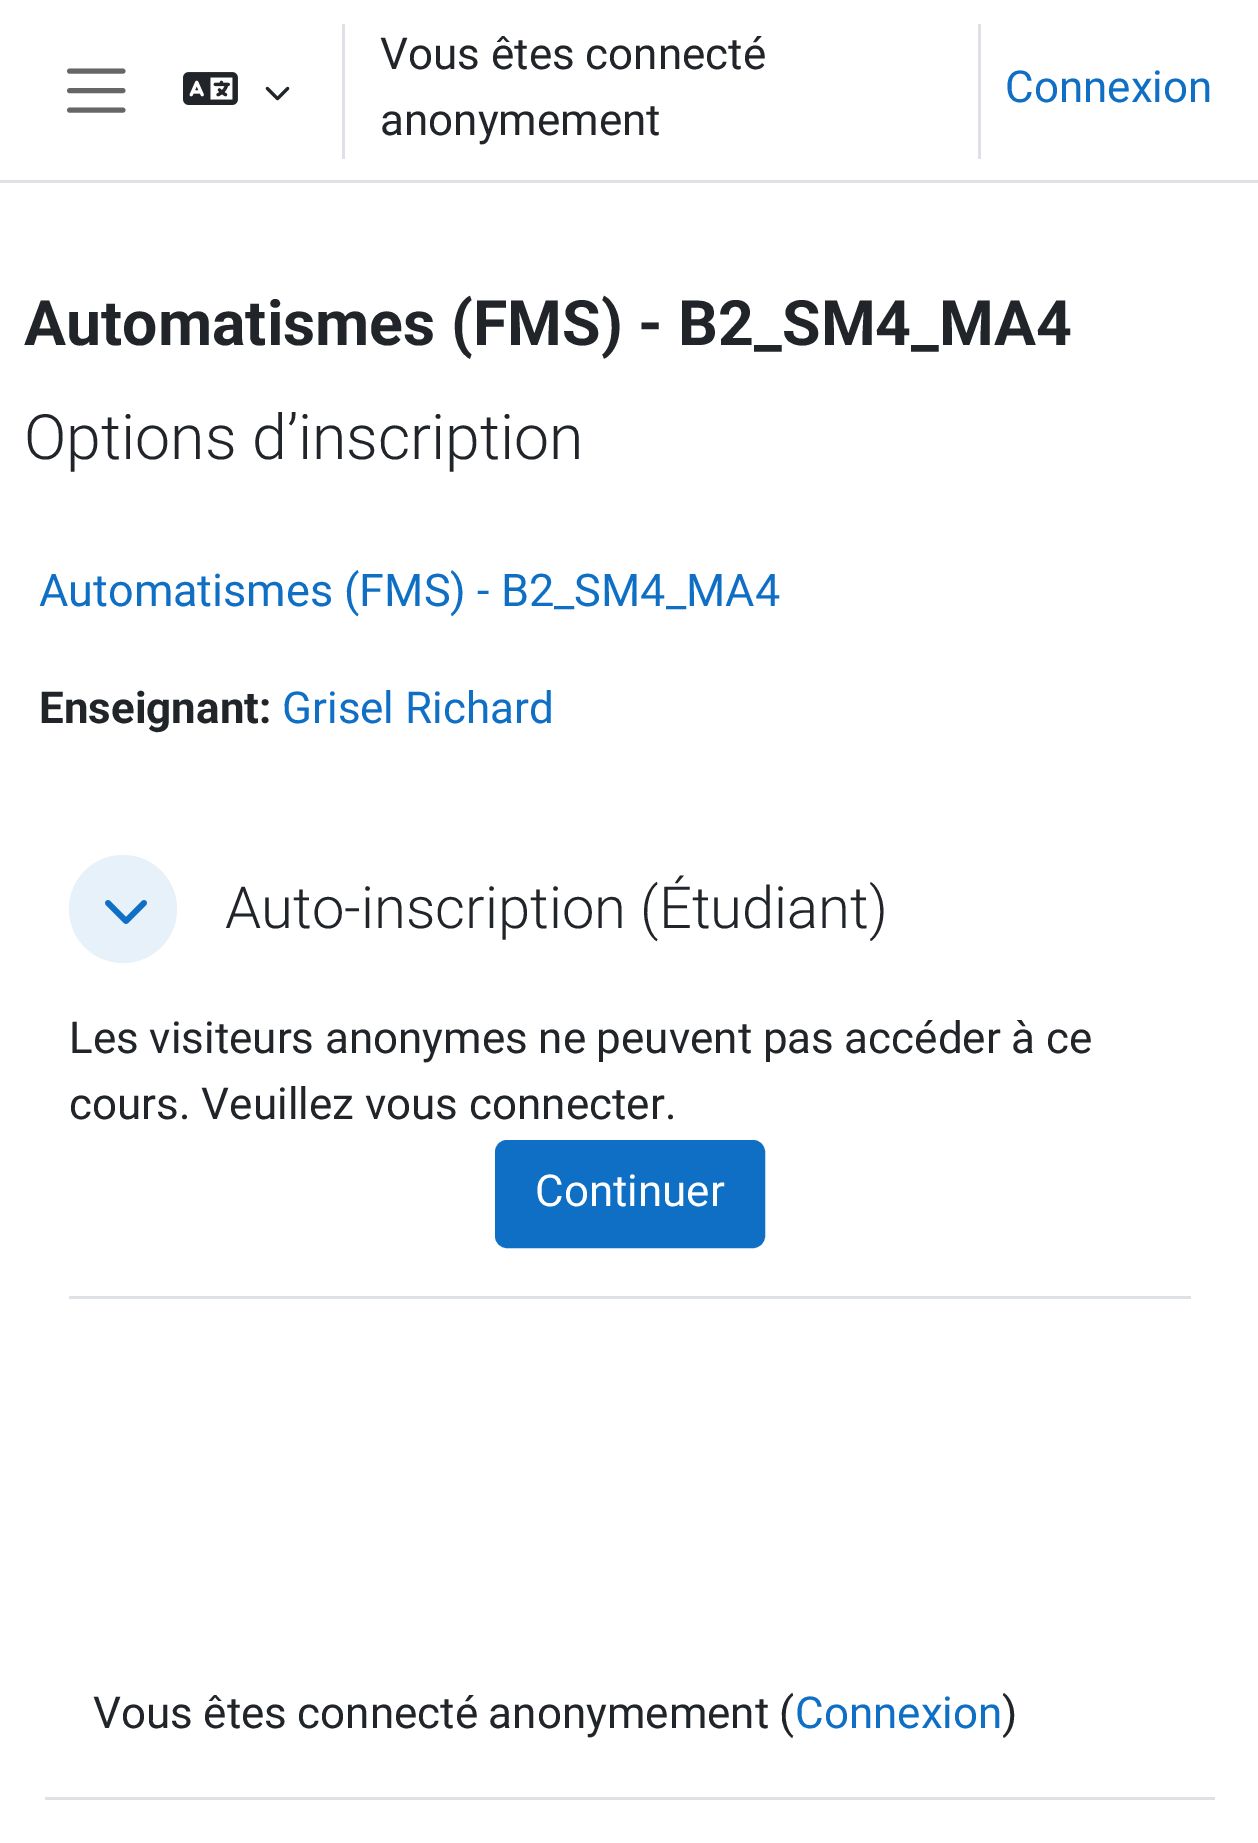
%!PS
<< /PageSize [1258 1843] >> setpagedevice
/rgb { 3 { 255 div 3 1 roll } repeat setrgbcolor } def
/font { [ exch dup neg 0 0 3 -1 roll 0 0 ] selectfont } def
/circle { newpath 0 360 arc closepath } def
/roundrect { 5 dict begin { /r /h /w /y /x } { exch def } forall
  x r add y moveto x w add y 2 copy h add r arct x w add y h add x 1 index r arct
  x y h add x y r arct x y 2 copy exch w add exch r arct closepath end } def
/picture { 5 dict begin { /h /w /y /x /name } { exch def } forall
  gsave x y translate w h scale
  w h 8 [w 0 0 h 0 0] name (r) file false 3 colorimage grestore end } def
0 1843 translate 1 -1 scale
4 setmiterlimit
255 255 255 rgb
0 0 1258 1843 rectfill
222 226 230 rgb
0 180 1258 3 rectfill
102 102 102 rgb
4.9 setlinewidth
1 setlinecap
69.5 71 moveto 123 71 lineto 69.5 90.5 moveto 123 90.5 lineto 69.5 110 moveto 123 110 lineto stroke
(img/1.rgb) 183 72 55 33 picture
(img/2.rgb) 265 86 25 15 picture
[
  [342 24 3 135 222 226 230]
  [978 24 3 135 222 226 230]
  [69 1296 1122 3 222 226 230]
] { aload pop rgb rectfill } forall
231 241 249 rgb
123 909 54 circle fill
(img/3.rgb) 105 900 42 24 picture
15 111 197 rgb
496.5 1141.5 267 105 10.5 roundrect gsave fill grestore
3 setlinewidth
0 setlinecap
stroke
222 226 230 rgb
45 1797 1170 3 rectfill
/Roboto-Regular 43.95 font
33 37 41 rgb
380 69 moveto (Vous êtes connecté) show
15 111 197 rgb
1005 102 moveto (Connexion) show
33 37 41 rgb
380 135 moveto (anonymement) show
/Roboto-Bold 62.6 font
24 345 moveto (Automatismes \(FMS\) - B2_SM4_MA4) show
/Roboto-Light 62.6 font
24 459 moveto (Options d’inscription) show
/Roboto-Regular 45 font
15 111 197 rgb
39 606 moveto (Automatismes \(FMS\) - B2_SM4_MA4) show
/Roboto-Bold 43.95 font
33 37 41 rgb
39 723 moveto (Enseignant:) show
/Roboto-Regular 43.95 font
15 111 197 rgb
282 723 moveto (Grisel Richard) show
/Roboto-Light 58 font
33 37 41 rgb
225 928 moveto (Auto-inscription \(Étudiant\)) show
/Roboto-Regular 43.95 font
69 1053 moveto -0.25 0 32 (Les visiteurs anonymes ne peuvent pas accéder à ce) widthshow
69 1119 moveto (cours. Veuillez vous connecter.) show
255 255 255 rgb
535 1206 moveto (Continuer) show
33 37 41 rgb
93 1728 moveto -0.5 0 32 (Vous êtes connecté anonymement \() widthshow
15 111 197 rgb
795 1728 moveto (Connexion) show
33 37 41 rgb
1002 1728 moveto (\)) show
showpage
